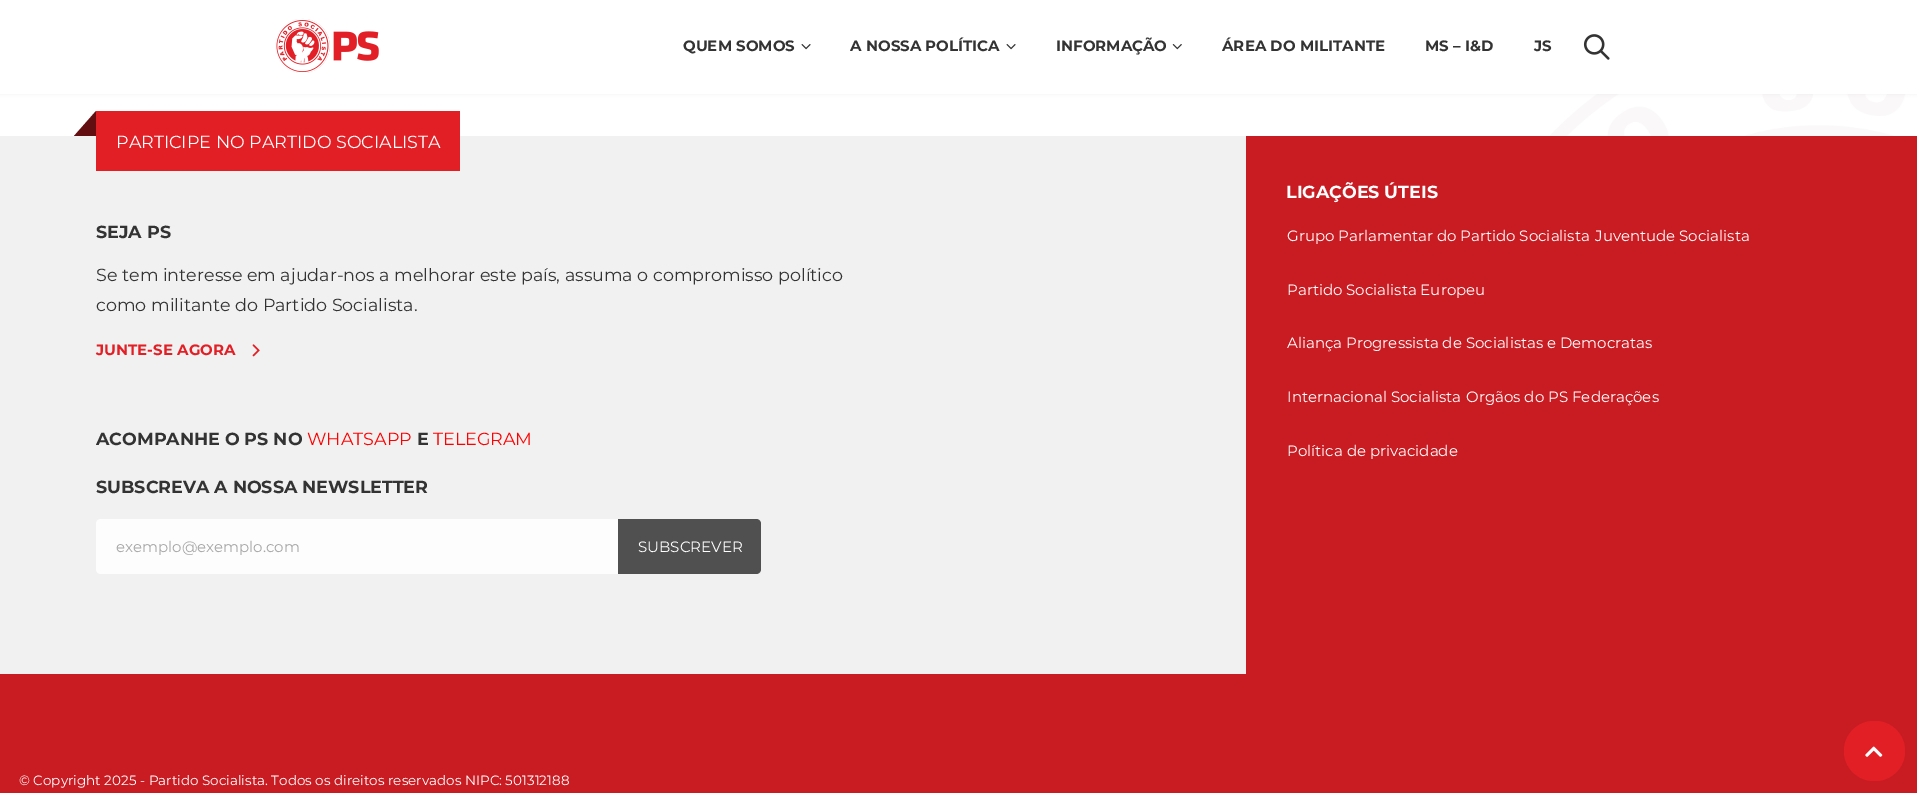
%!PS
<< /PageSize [1917 793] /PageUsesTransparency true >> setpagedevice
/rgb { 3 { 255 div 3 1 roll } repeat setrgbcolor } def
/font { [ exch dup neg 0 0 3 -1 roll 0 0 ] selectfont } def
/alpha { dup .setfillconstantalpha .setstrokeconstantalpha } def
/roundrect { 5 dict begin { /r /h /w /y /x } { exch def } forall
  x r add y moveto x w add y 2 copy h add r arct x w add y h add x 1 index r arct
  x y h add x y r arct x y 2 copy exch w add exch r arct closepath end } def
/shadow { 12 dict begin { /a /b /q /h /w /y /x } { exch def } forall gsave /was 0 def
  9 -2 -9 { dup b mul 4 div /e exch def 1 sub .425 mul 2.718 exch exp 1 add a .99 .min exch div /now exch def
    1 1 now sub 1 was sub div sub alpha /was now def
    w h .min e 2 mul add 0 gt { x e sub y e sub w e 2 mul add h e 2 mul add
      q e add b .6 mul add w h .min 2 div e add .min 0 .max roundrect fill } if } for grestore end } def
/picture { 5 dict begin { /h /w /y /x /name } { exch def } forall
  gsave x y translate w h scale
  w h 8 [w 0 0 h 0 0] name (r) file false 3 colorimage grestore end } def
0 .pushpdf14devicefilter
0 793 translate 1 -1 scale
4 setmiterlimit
255 255 255 rgb
0 0 1917 793 rectfill
(img/5.rgb) 1550 94 367 42 picture
0 0 0 rgb
0 0 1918 94 0 2 0.06 shadow
255 255 255 rgb
0 0 1917 94 rectfill
(img/1.rgb) 275 18 104 55 picture
(img/2.rgb) 801 44 10 6 picture
(img/2.rgb) 1006 44 10 6 picture
(img/3.rgb) 1172 44 10 6 picture
(img/4.rgb) 1583 34 27 26 picture
[
  [0 136 1917 657 201 28 34]
  [0 136 1246 538 241 241 241]
  [96 111 364 60 227 31 38]
] { aload pop rgb rectfill } forall
99 14 17 rgb
96 111 moveto 96 136 lineto 74 136 lineto closepath fill
(img/6.rgb) 252 344 8 13 picture
253 253 253 rgb
101 519 moveto 619 519 lineto 619 574 lineto 101 574 lineto 98 574 96 572 96 569 curveto 96 524 lineto 96 521 98 519 101 519 curveto closepath fill
80 80 80 rgb
618 519 moveto 756 519 lineto 759 519 761 521 761 524 curveto 761 569 lineto 761 572 759 574 756 574 curveto 618 574 lineto closepath fill
227 31 38 rgb
1844 721 61 60 30 roundrect fill
(img/7.rgb) 1865 746 18 11 picture
/Montserrat-Bold 15 font
51 51 51 rgb
[
  [(QUEM SOMOS) 683 51]
  [(A NOSSA POLÍTICA) 850 51]
  [(INFORMAÇÃO) 1056 51]
  [(ÁREA DO MILITANTE) 1222 51]
  [(MS – I&D) 1425 51]
  [(JS) 1534 51]
] { aload pop moveto show } forall
/Montserrat-Regular 17.5 font
255 255 255 rgb
116 148 moveto (PARTICIPE NO PARTIDO SOCIALISTA) show
/Montserrat-Bold 17.5 font
51 51 51 rgb
96 238 moveto (SEJA PS) show
/Montserrat-Regular 17.5 font
96 281 moveto (Se tem interesse em ajudar-nos a melhorar este país, assuma o compromisso político) show
96 311 moveto (como militante do Partido Socialista.) show
/Montserrat-Bold 15 font
227 31 38 rgb
96 355 moveto (JUNTE-SE AGORA) show
/Montserrat-Bold 17.5 font
51 51 51 rgb
96 445 moveto (ACOMPANHE O PS NO) show
/Montserrat-Regular 17.5 font
255 0 0 rgb
307 445 moveto (WHATSAPP) show
/Montserrat-Bold 17.5 font
51 51 51 rgb
417 445 moveto (E) show
/Montserrat-Regular 17.5 font
255 0 0 rgb
433 445 moveto (TELEGRAM) show
/Montserrat-Bold 17.5 font
51 51 51 rgb
96 493 moveto (SUBSCREVA A NOSSA NEWSLETTER) show
/Montserrat-Regular 15 font
166 166 166 rgb
116 552 moveto (exemplo@exemplo.com) show
255 255 255 rgb
638 552 moveto (SUBSCREVER) show
/Montserrat-Bold 17.5 font
1286 198 moveto (LIGAÇÕES ÚTEIS) show
/Montserrat-Regular 15 font
[
  [(Grupo Parlamentar do Partido Socialista) 1287 241]
  [(Juventude Socialista) 1595 241]
  [(Partido Socialista Europeu) 1287 295]
  [(Aliança Progressista de Socialistas e Democratas) 1287 348]
  [(Internacional Socialista) 1287 402]
  [(Orgãos do PS) 1466 402]
  [(Federações) 1572 402]
  [(Política de privacidade) 1287 456]
] { aload pop moveto show } forall
/Montserrat-Regular 13.5 font
19 785 moveto (© Copyright 2025 - Partido Socialista. Todos os direitos reservados NIPC: 501312188) show
.poppdf14devicefilter showpage
